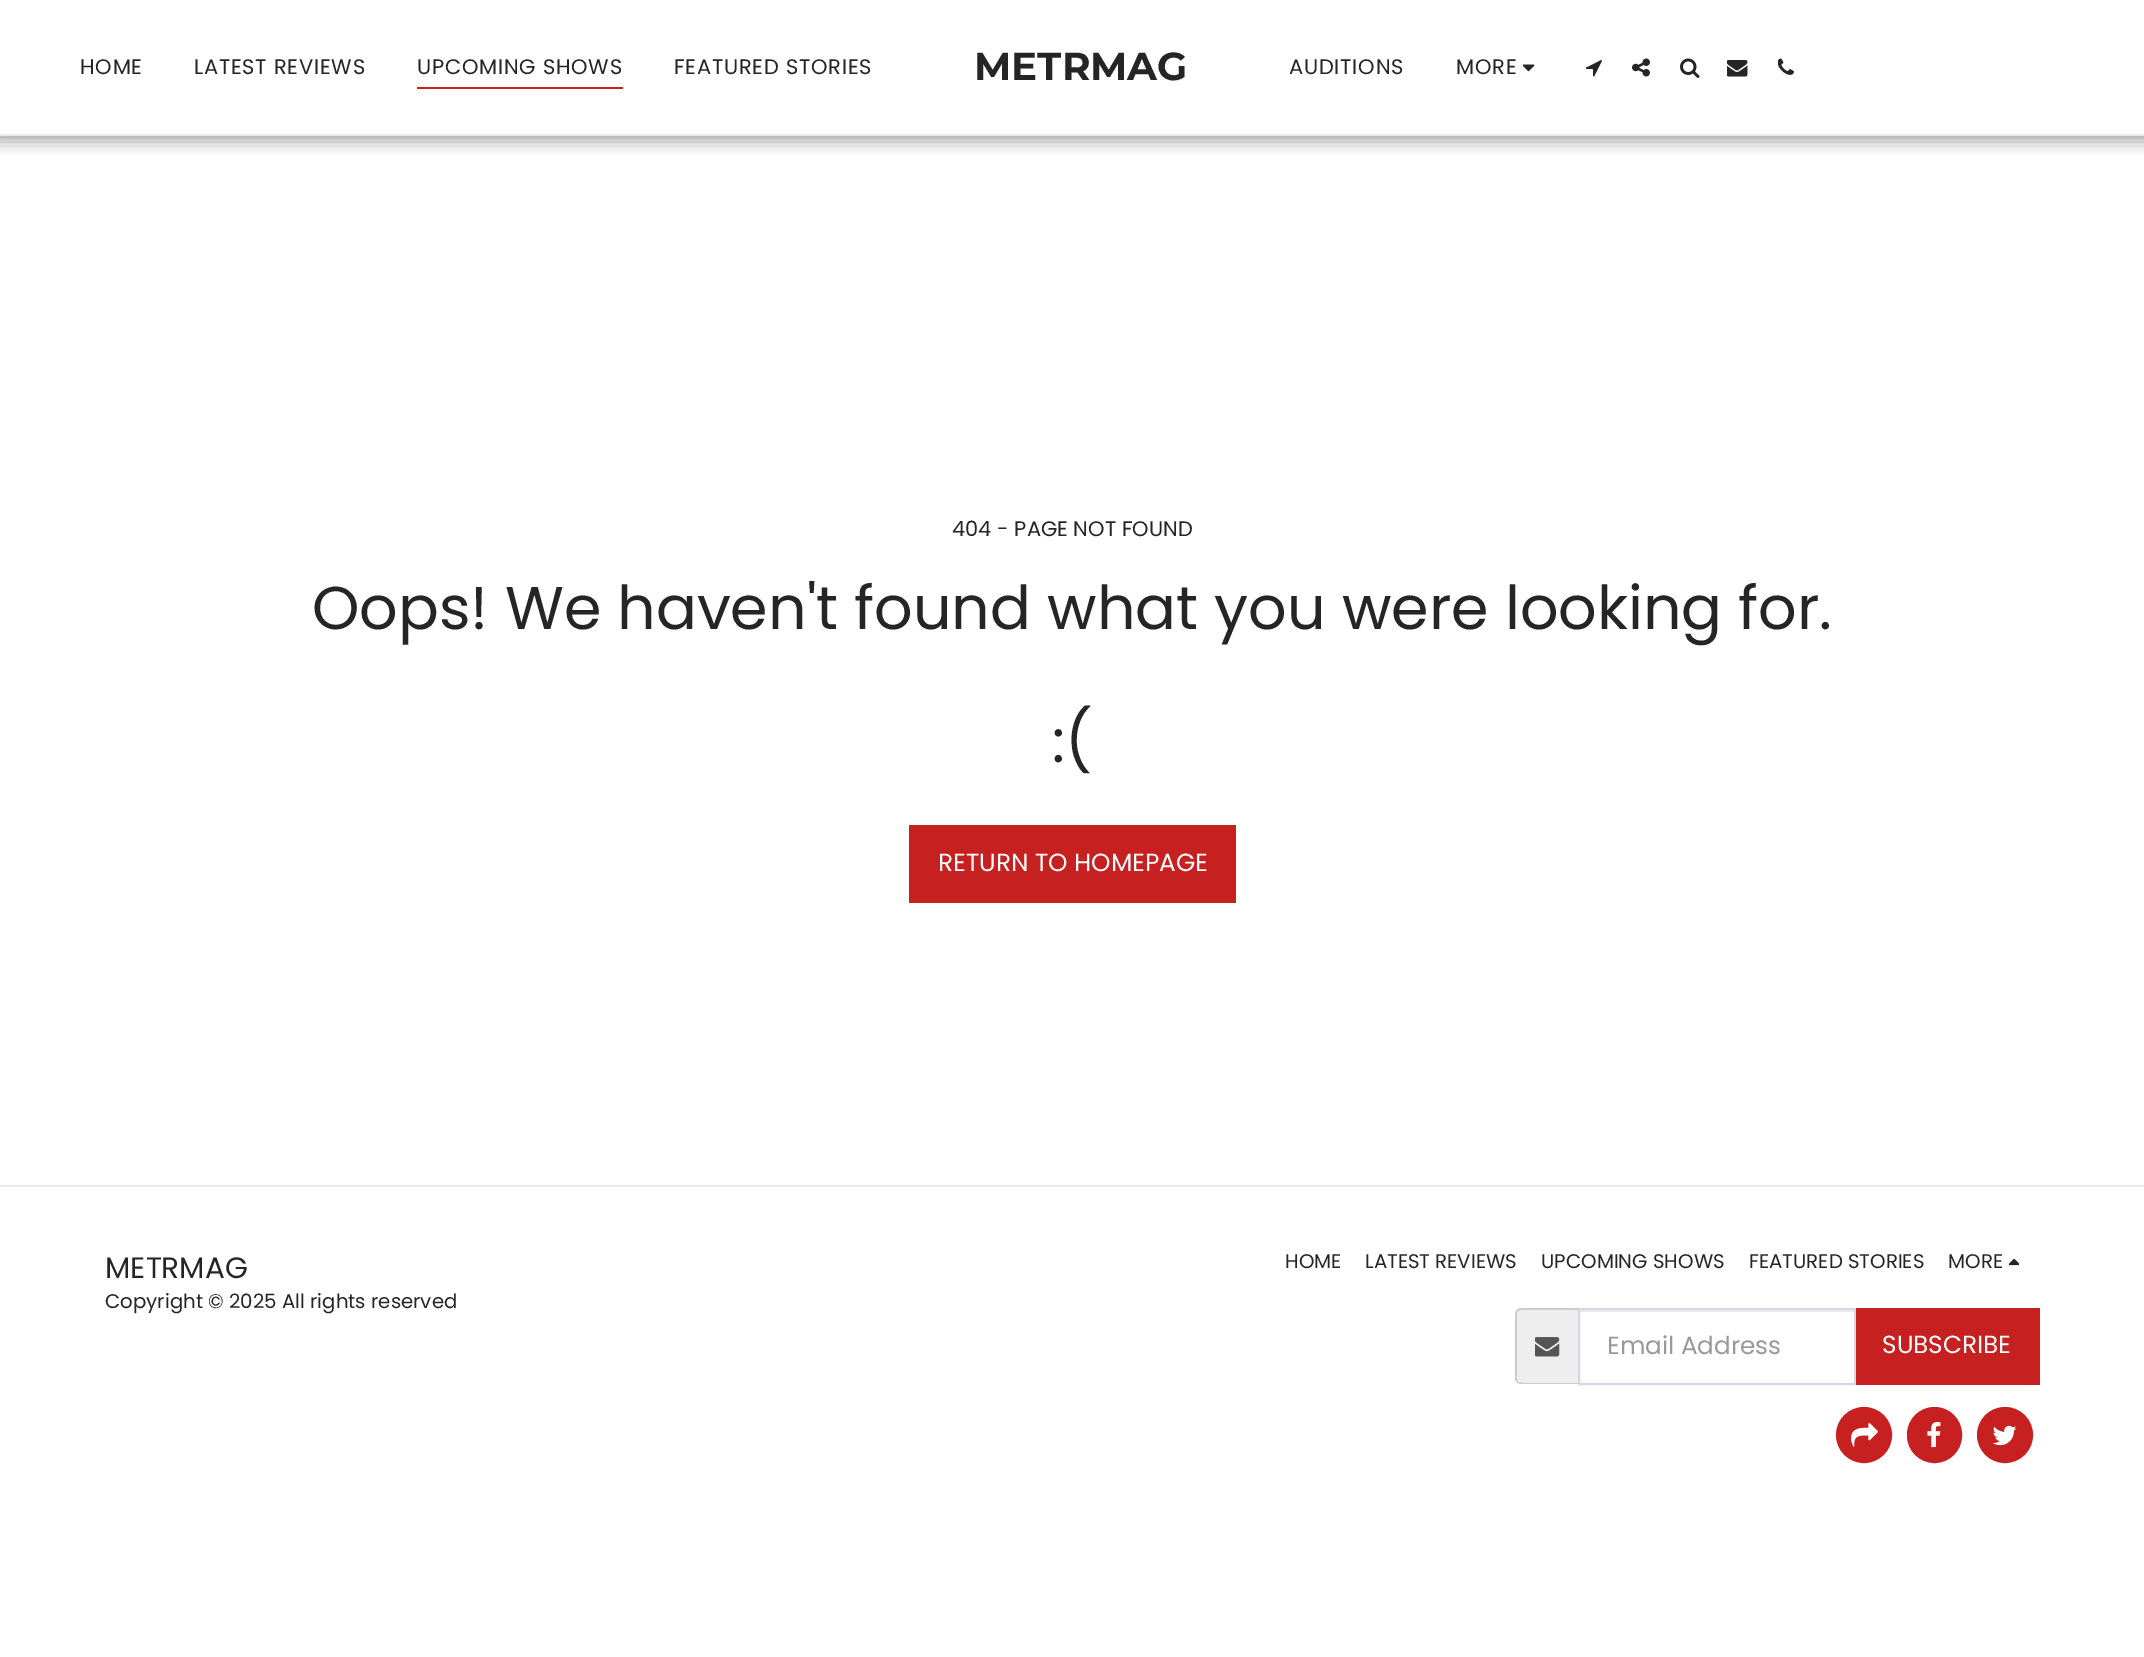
%!PS
<< /PageSize [2144 1657] /PageUsesTransparency true >> setpagedevice
/rgb { 3 { 255 div 3 1 roll } repeat setrgbcolor } def
/font { [ exch dup neg 0 0 3 -1 roll 0 0 ] selectfont } def
/alpha { dup .setfillconstantalpha .setstrokeconstantalpha } def
/circle { newpath 0 360 arc closepath } def
/roundrect { 5 dict begin { /r /h /w /y /x } { exch def } forall
  x r add y moveto x w add y 2 copy h add r arct x w add y h add x 1 index r arct
  x y h add x y r arct x y 2 copy exch w add exch r arct closepath end } def
/shadow { 12 dict begin { /a /b /q /h /w /y /x } { exch def } forall gsave /was 0 def
  9 -2 -9 { dup b mul 4 div /e exch def 1 sub .425 mul 2.718 exch exp 1 add a .99 .min exch div /now exch def
    1 1 now sub 1 was sub div sub alpha /was now def
    w h .min e 2 mul add 0 gt { x e sub y e sub w e 2 mul add h e 2 mul add
      q e add b .6 mul add w h .min 2 div e add .min 0 .max roundrect fill } if } for grestore end } def
/picture { 5 dict begin { /h /w /y /x /name } { exch def } forall
  gsave x y translate w h scale
  w h 8 [w 0 0 h 0 0] name (r) file false 3 colorimage grestore end } def
0 .pushpdf14devicefilter
0 1657 translate 1 -1 scale
4 setmiterlimit
255 255 255 rgb
0 0 2144 1657 rectfill
gsave
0 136 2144 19 rectclip
0 0 0 rgb
-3 0 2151 141 0 9 0.35 shadow
grestore
235 235 235 rgb
0 134 2144 2 rectfill
198 32 32 rgb
417 87 206 2 rectfill
(img/1.rgb) 1523 64 12 8 picture
(img/2.rgb) 1586 60 16 17 picture
(img/3.rgb) 1632 58 18 19 picture
(img/4.rgb) 1680 58 20 20 picture
(img/5.rgb) 1727 60 21 17 picture
(img/6.rgb) 1778 58 16 17 picture
909 825 327 78 rectfill
235 235 235 rgb
0 1185 2144 2 rectfill
(img/7.rgb) 2009 1258 10 8 picture
238 238 238 rgb
1522 1310 moveto 1578 1310 lineto 1578 1383 lineto 1522 1383 lineto 1519 1383 1517 1381 1517 1378 curveto 1517 1315 lineto 1517 1312 1519 1310 1522 1310 curveto closepath fill
204 204 204 rgb
1521 1308 moveto 1578 1308 lineto 1578 1384 lineto 1521 1384 lineto 1518 1384 1515 1382 1515 1378 curveto 1515 1314 lineto 1515 1311 1518 1308 1521 1308 curveto closepath 1521 1310 moveto 1578 1310 lineto 1578 1383 lineto 1571 1383 1521 1384 1518 1382 curveto 1517 1379 lineto 1517 1313 lineto 1518 1311 lineto closepath eofill
(img/8.rgb) 1535 1337 25 20 picture
236 236 236 rgb
1580 1310 274 2 rectfill
212 215 229 rgb
2 setlinewidth
1579 1309 276 75 rectstroke
198 32 32 rgb
1856 1308 184 77 rectfill
1864 1435 27 circle gsave fill grestore
stroke
(img/9.rgb) 1851 1423 27 24 picture
1908 1408 53 54 26.5 roundrect gsave fill grestore
stroke
(img/10.rgb) 1927 1422 14 26 picture
2005 1435 27 circle gsave fill grestore
stroke
(img/11.rgb) 1993 1425 24 21 picture
/Poppins-Regular 21 font
37 37 37 rgb
80 74 moveto 0.75 0 (HOME) ashow
194 74 moveto 0.75 0 (LATEST REVIEWS) ashow
417 74 moveto 0.75 0 (UPCOMING SHOWS) ashow
674 74 moveto 0.75 0 (FEATURED STORIES) ashow
/Montserrat-Bold 39 font
974 80 moveto (METRMAG) show
/Poppins-Regular 21 font
1289 74 moveto 0.75 0 (AUDITIONS) ashow
1456 74 moveto 0.75 0 (MORE) ashow
952 536 moveto (404 - PAGE NOT FOUND) show
/Poppins-Regular 60.4 font
312 629 moveto (Oops! We haven't found what you were looking for.) show
1052 762 moveto (:\() show
/Poppins-Regular 24.75 font
255 255 255 rgb
938 871 moveto (RETURN TO HOMEPAGE) show
/Poppins-Regular 29.5 font
37 37 37 rgb
105 1278 moveto (METRMAG) show
/Poppins-Regular 19.75 font
[
  [(Copyright © 2025 All rights reserved) 105 1308]
  [(HOME) 1285 1268]
  [(LATEST REVIEWS) 1365 1268]
  [(UPCOMING SHOWS) 1541 1268]
  [(FEATURED STORIES) 1749 1268]
  [(MORE) 1948 1268]
] { aload pop moveto show } forall
/Poppins-Regular 24.75 font
153 153 153 rgb
1607 1354 moveto (Email Address) show
255 255 255 rgb
1882 1353 moveto (SUBSCRIBE) show
.poppdf14devicefilter showpage
